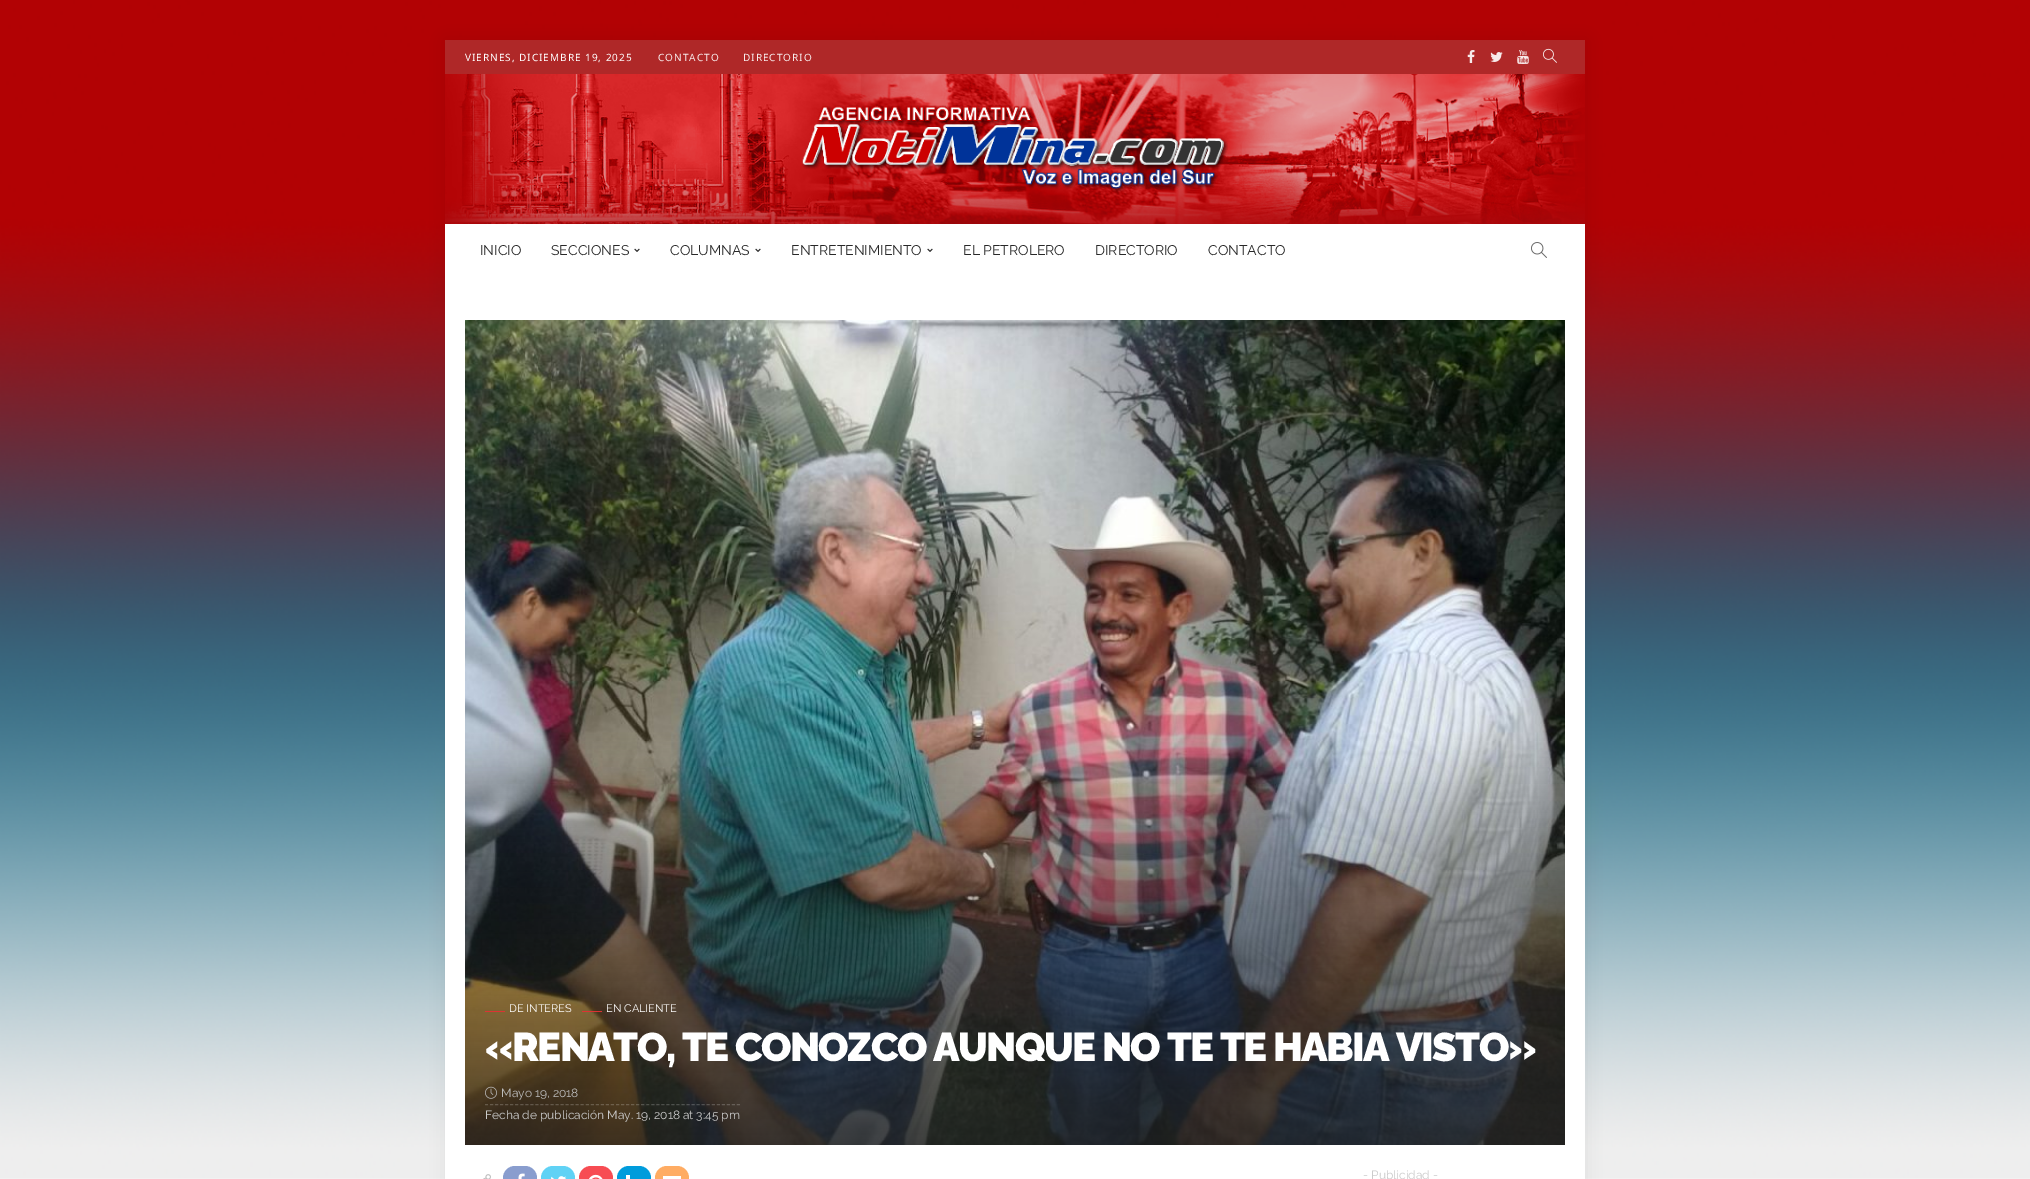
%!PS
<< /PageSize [2030 1179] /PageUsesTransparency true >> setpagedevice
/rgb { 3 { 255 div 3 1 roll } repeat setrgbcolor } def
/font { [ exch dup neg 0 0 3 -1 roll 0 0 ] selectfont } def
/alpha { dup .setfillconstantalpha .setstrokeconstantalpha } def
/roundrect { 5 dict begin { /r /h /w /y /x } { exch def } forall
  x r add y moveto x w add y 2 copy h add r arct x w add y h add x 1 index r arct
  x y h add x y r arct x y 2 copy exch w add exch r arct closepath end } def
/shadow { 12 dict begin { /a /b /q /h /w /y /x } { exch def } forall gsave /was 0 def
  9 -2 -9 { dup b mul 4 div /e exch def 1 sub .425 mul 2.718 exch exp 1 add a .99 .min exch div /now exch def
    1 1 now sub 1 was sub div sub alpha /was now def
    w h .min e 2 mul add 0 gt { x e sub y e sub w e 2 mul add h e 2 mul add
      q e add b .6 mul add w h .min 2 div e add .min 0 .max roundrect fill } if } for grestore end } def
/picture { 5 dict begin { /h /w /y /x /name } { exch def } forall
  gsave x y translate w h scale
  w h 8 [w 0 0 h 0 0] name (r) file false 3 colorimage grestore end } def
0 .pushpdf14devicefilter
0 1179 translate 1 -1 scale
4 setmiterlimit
255 255 255 rgb
0 0 2030 1179 rectfill
(img/1.rgb) 0 0 2030 1179 picture
28 28 28 rgb
446 41 1140 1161 0 7.5 0.07 shadow
255 255 255 rgb
445 224 1140 955 rectfill
175 40 40 rgb
445 40 1140 34 rectfill
(img/2.rgb) 1467 50 8 13 picture
(img/3.rgb) 1490 52 13 10 picture
(img/4.rgb) 1517 50 12 14 picture
(img/5.rgb) 1543 48 14 15 picture
(img/6.rgb) 445 74 1140 150 picture
(img/7.rgb) 802 105 426 88 picture
(img/8.rgb) 634 248 6 4 picture
(img/8.rgb) 755 248 6 4 picture
(img/8.rgb) 927 248 6 4 picture
(img/9.rgb) 1531 242 16 16 picture
(img/10.rgb) 465 320 1100 825 picture
221 51 51 rgb
485 1011 20 1 rectfill
582 1011 20 1 rectfill
(img/11.rgb) 485 1086 12 13 picture
0.2 alpha
255 255 255 rgb
[3 2.04] 0 setdash
485 1104.5 moveto 740 1104.5 lineto stroke
1 alpha
(img/12.rgb) 483 1174 8 5 picture
137 157 206 rgb
503 1166 34 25 12 roundrect fill
(img/13.rgb) 518 1173 7 6 picture
96 210 245 rgb
541 1166 34 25 12 roundrect fill
(img/14.rgb) 551 1176 16 3 picture
247 76 83 rgb
579 1166 34 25 12 roundrect fill
(img/15.rgb) 589 1174 14 5 picture
0 156 220 rgb
617 1166 34 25 12 roundrect fill
255 255 255 rgb
626 1175 4 4 rectfill
255 172 99 rgb
655 1166 34 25 12 roundrect fill
255 255 255 rgb
663 1176 18 3 rectfill
/NotoSans-Regular 10 font
465 61 moveto 1 0 (VIERNES, DICIEMBRE 19, 2025) ashow
247 234 234 rgb
658 61 moveto 1 0 (CONTACTO) ashow
743 61 moveto 1 0 (DIRECTORIO) ashow
/Raleway-Regular 14 font
40 40 40 rgb
[
  [(INICIO) 480 255]
  [(SECCIONES) 551 255]
  [(COLUMNAS) 670 255]
  [(ENTRETENIMIENTO) 791 255]
  [(EL PETROLERO) 963 255]
  [(DIRECTORIO) 1095 255]
  [(CONTACTO) 1208 255]
] { aload pop moveto show } forall
/Raleway-Regular 11 font
255 255 255 rgb
509 1012 moveto (DE INTERES) show
606 1012 moveto (EN CALIENTE) show
/Raleway-Black 40 font
485 1061 moveto -1.6 0 («RENATO, TE CONOZCO AUNQUE NO TE TE HABIA VISTO») ashow
/Raleway-Regular 12 font
187 187 187 rgb
501 1097 moveto (Mayo 19, 2018) show
203 203 203 rgb
485 1119 moveto (Fecha de publicación May. 19, 2018 at 3:45 pm) show
1363 1179 moveto (- Publicidad -) show
.poppdf14devicefilter showpage
